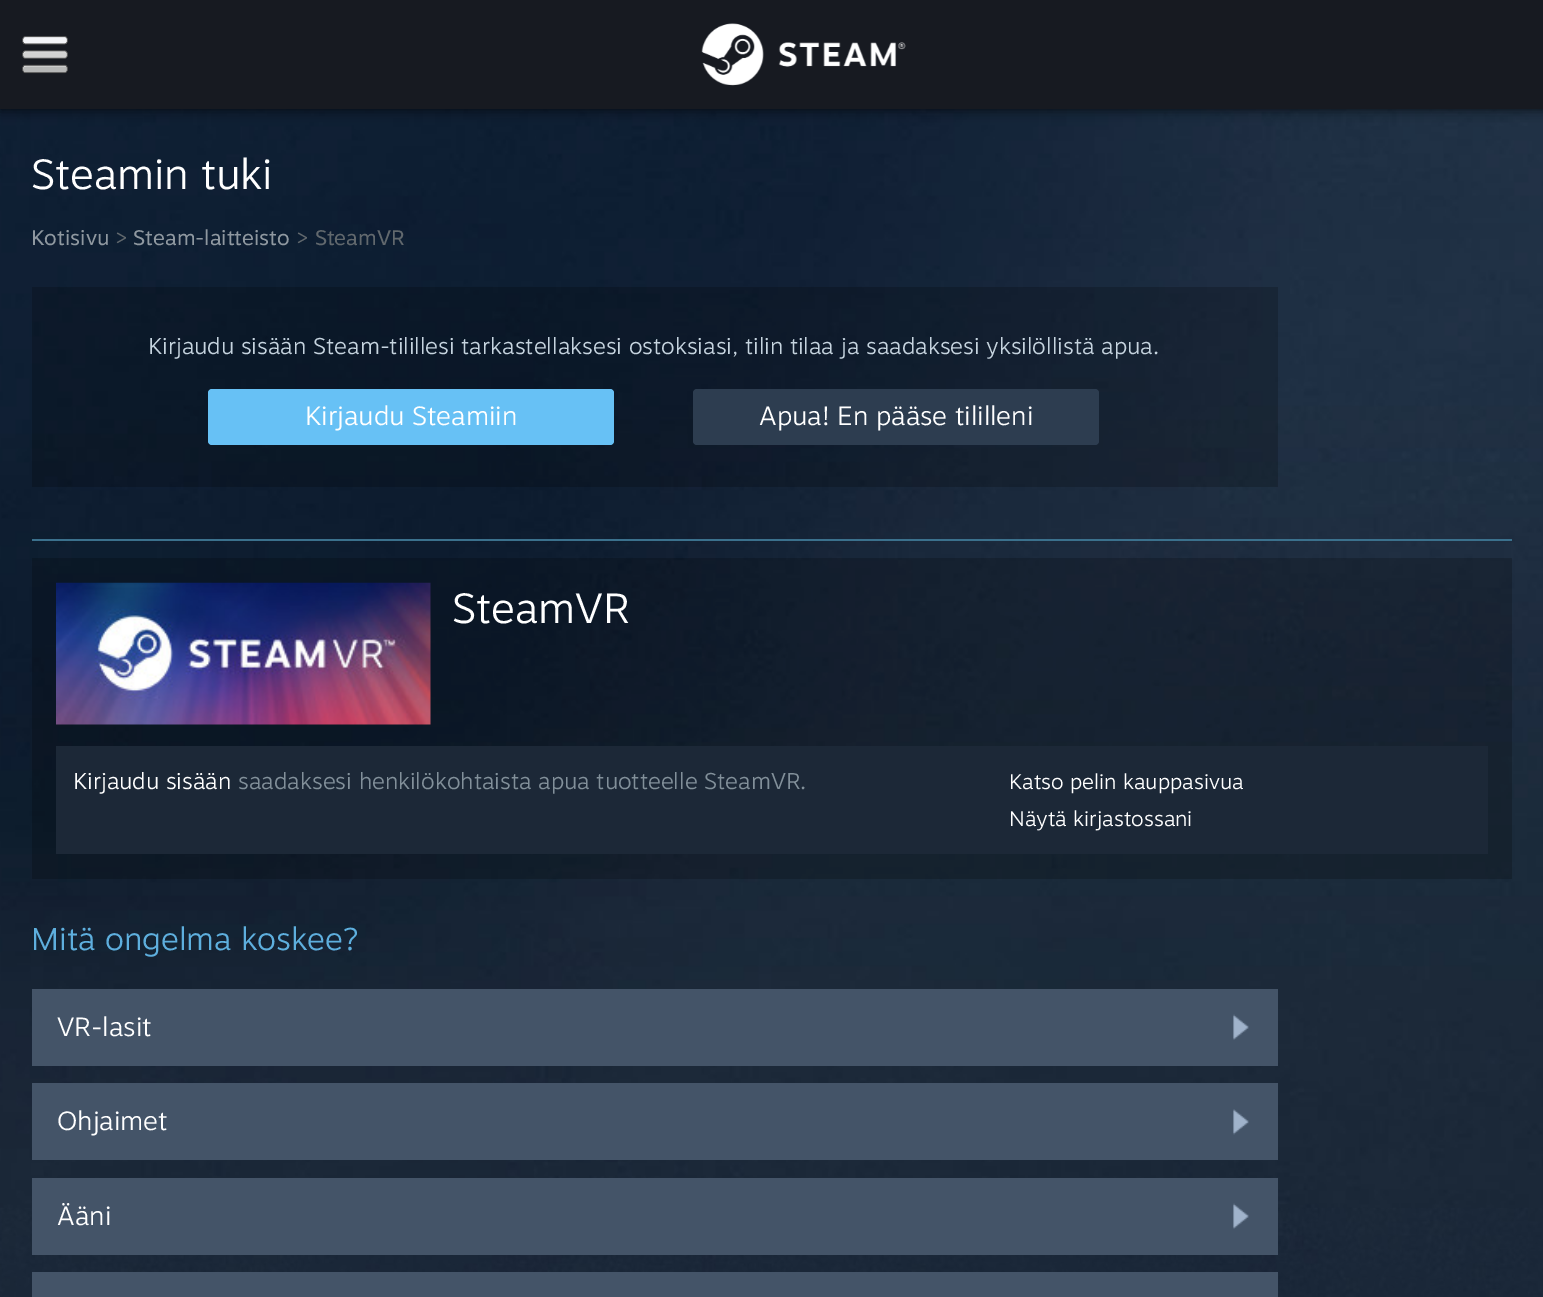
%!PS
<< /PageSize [1543 1297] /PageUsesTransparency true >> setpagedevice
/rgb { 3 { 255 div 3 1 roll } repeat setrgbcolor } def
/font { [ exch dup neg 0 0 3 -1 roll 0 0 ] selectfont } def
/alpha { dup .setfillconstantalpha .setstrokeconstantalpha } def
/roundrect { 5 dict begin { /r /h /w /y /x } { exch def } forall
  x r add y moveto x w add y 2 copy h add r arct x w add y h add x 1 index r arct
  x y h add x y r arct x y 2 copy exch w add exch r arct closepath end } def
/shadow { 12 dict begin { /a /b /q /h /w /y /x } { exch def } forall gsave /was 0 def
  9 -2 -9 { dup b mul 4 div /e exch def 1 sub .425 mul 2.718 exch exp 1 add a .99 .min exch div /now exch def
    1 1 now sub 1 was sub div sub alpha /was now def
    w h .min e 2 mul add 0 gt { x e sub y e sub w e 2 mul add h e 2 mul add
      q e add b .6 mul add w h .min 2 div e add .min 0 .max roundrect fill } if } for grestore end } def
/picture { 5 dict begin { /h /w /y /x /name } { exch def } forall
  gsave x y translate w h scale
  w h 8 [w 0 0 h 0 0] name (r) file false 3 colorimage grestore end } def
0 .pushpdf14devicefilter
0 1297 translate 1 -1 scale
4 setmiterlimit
255 255 255 rgb
0 0 1543 1297 rectfill
(img/1.rgb) 0 109 1543 1188 picture
0 0 0 rgb
0 0 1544 109 0 6 0.75 shadow
23 26 33 rgb
0 0 1543 109 rectfill
(img/2.rgb) 22 36 46 38 picture
(img/3.rgb) 701 23 205 63 picture
0.2 alpha
0 0 0 rgb
32 287 1246 200 rectfill
1 alpha
103 193 245 rgb
208 389 406 56 4 roundrect fill
45 61 80 rgb
693 389 406 56 4 roundrect fill
59 113 141 rgb
32 539 1480 2 rectfill
0.2 alpha
0 0 0 rgb
32 558 1480 321 rectfill
1 alpha
(img/4.rgb) 56 582 375 143 picture
28 40 55 rgb
56 746 1432 108 rectfill
68 84 104 rgb
32 989 1246 77 rectfill
(img/5.rgb) 1233 1014 16 26 picture
32 1083 1246 77 rectfill
(img/6.rgb) 1233 1109 16 26 picture
32 1178 1246 77 rectfill
(img/5.rgb) 1233 1203 16 26 picture
32 1272 1246 25 rectfill
/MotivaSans-Light 42 font
255 255 255 rgb
31 189 moveto (Steamin tuki) show
/MotivaSans-Regular 21 font
143 152 160 rgb
31 245 moveto (Kotisivu) show
97 104 109 rgb
115 245 moveto (>) show
143 152 160 rgb
133 245 moveto (Steam-laitteisto) show
97 104 109 rgb
296 245 moveto (> SteamVR) show
/MotivaSans-Light 22.75 font
198 212 223 rgb
148 354 moveto (Kirjaudu sisään Steam-tilillesi tarkastellaksesi ostoksiasi, tilin tilaa ja saadaksesi yksilöllistä apua.) show
/MotivaSans-Light 26.25 font
255 255 255 rgb
305 425 moveto (Kirjaudu Steamiin) show
759 425 moveto (Apua! En pääse tililleni) show
/MotivaSans-Light 42 font
452 623 moveto (SteamVR) show
/MotivaSans-Light 22.75 font
73 789 moveto (Kirjaudu sisään) show
130 144 154 rgb
238 789 moveto (saadaksesi henkilökohtaista apua tuotteelle SteamVR.) show
/MotivaSans-Light 21 font
255 255 255 rgb
1009 789 moveto (Katso pelin kauppasivua) show
1009 826 moveto (Näytä kirjastossani) show
/MotivaSans-Light 31.5 font
94 175 222 rgb
31 950 moveto (Mitä ongelma koskee?) show
/MotivaSans-Light 26.25 font
255 255 255 rgb
[
  [(VR-lasit) 57 1036]
  [(Ohjaimet) 57 1130]
  [(Ääni) 57 1225]
] { aload pop moveto show } forall
.poppdf14devicefilter showpage
